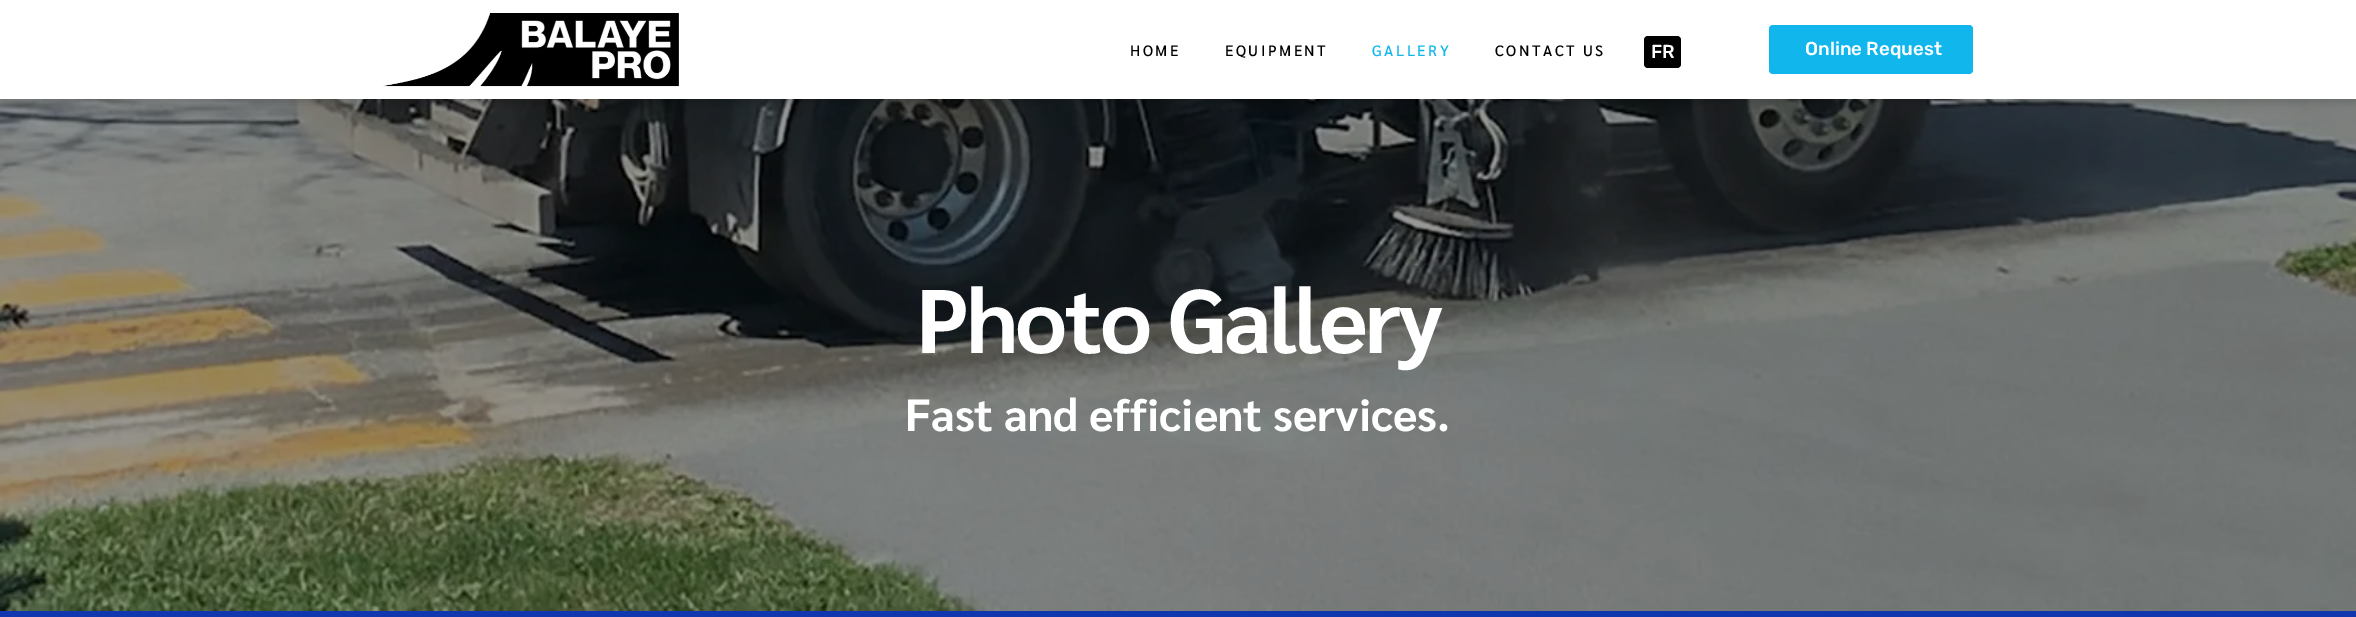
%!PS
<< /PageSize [2356 617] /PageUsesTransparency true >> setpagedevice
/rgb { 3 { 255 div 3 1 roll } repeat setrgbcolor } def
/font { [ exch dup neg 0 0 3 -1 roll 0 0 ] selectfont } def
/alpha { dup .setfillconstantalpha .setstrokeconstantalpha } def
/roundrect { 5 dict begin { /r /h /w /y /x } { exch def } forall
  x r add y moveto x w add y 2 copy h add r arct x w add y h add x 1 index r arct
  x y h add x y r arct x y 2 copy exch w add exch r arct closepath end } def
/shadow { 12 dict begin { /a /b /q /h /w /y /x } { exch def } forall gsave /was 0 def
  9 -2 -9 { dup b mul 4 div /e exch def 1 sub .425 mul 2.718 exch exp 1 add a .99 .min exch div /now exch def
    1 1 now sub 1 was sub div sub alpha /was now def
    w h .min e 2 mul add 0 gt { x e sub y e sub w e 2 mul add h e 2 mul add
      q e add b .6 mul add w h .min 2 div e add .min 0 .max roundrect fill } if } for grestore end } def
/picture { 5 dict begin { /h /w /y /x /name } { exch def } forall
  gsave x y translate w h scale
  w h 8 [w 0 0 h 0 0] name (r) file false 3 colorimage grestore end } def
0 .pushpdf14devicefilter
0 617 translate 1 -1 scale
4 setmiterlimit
255 255 255 rgb
0 0 2356 617 rectfill
(img/2.rgb) 0 99 2356 512 picture
0 0 0 rgb
0 3 2356 98 0 6 0.2 shadow
255 255 255 rgb
0 0 2356 99 rectfill
(img/1.rgb) 383 13 296 74 picture
0 0 0 rgb
1644 36 37 32 4 roundrect fill
16 182 236 rgb
1769 25 204 49 4 roundrect fill
17 55 174 rgb
0 611 2356 6 rectfill
/Sarabun-Medium 15 font
0 0 0 rgb
1130 56 moveto 2.5 0 (HOME) ashow
1225 56 moveto 2.5 0 (EQUIPMENT) ashow
16 182 236 rgb
1372 56 moveto 2.5 0 (GALLERY) ashow
0 0 0 rgb
1495 56 moveto 2.5 0 (CONTACT US) ashow
/Rubik-Medium 18.75 font
255 255 255 rgb
1651 58 moveto (FR) show
1805 55 moveto (Online Request) show
/Sarabun-Bold 90 font
916 353 moveto -2.5 0 (Photo Gallery) ashow
/Sarabun-Bold 45 font
905 431 moveto (Fast and efficient services.) show
.poppdf14devicefilter showpage
